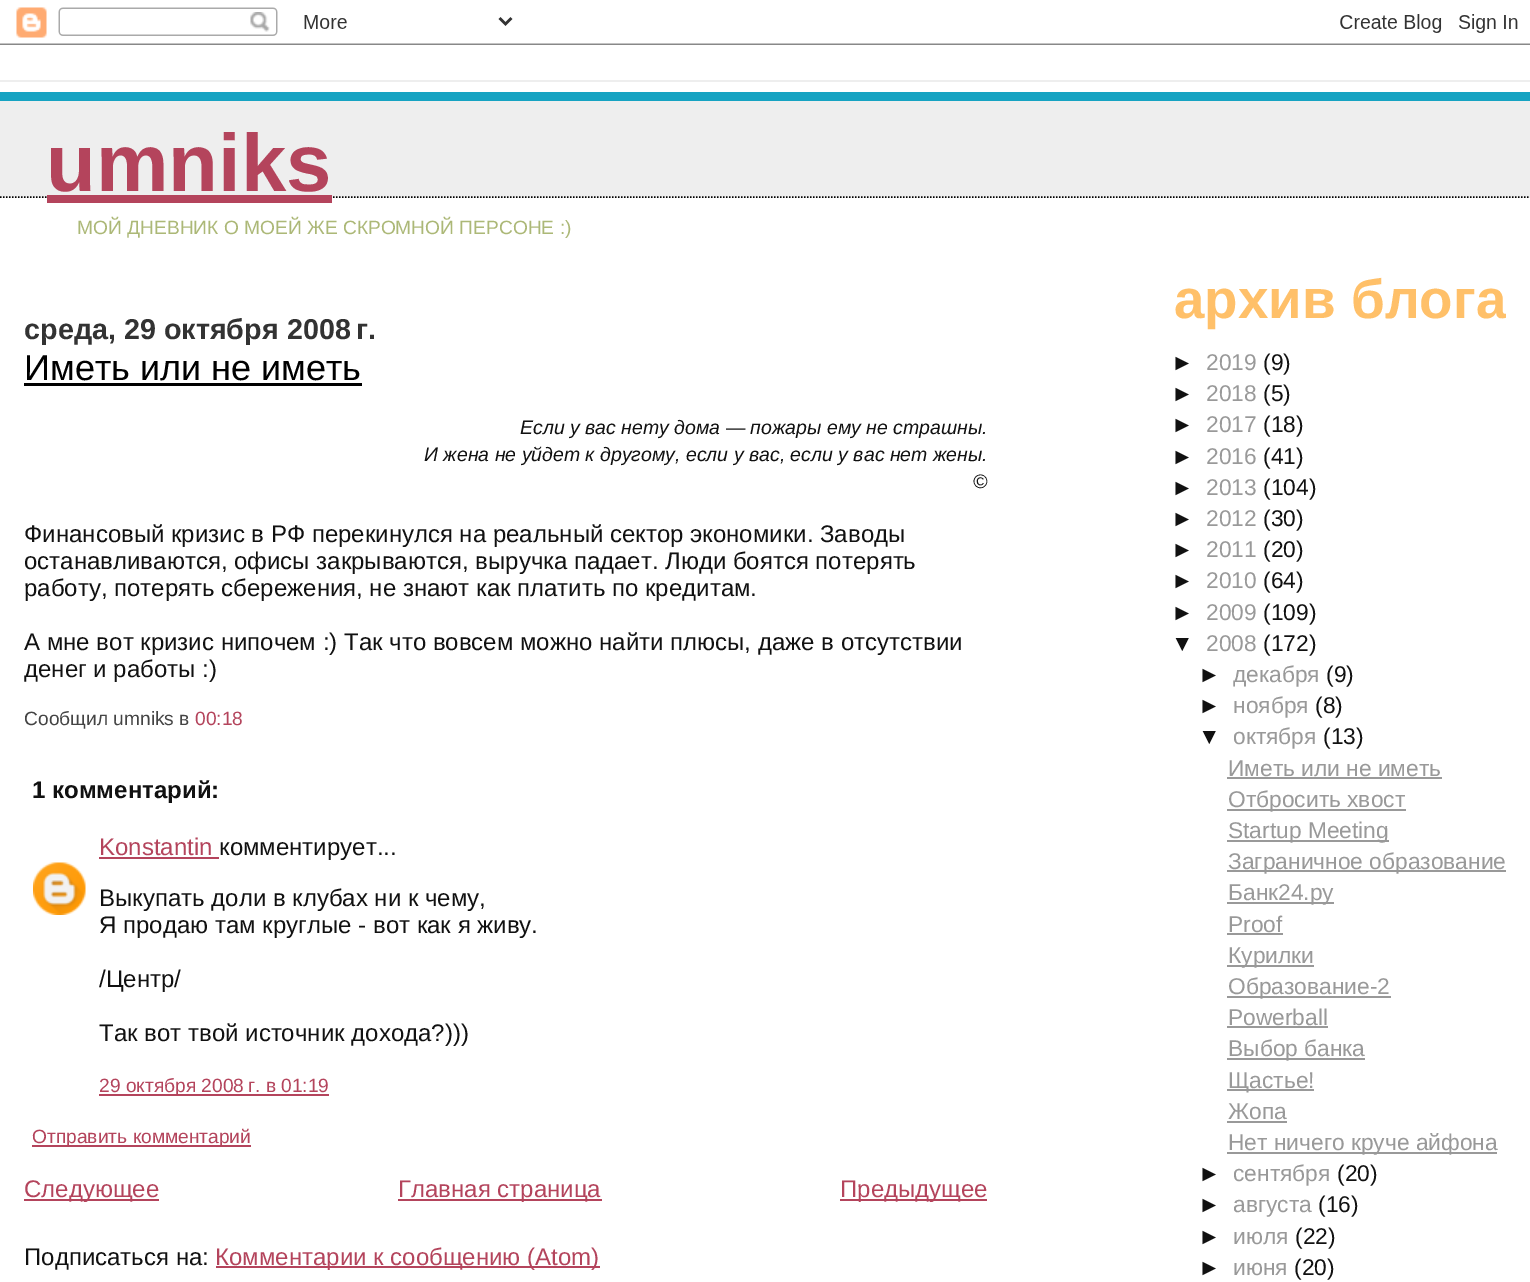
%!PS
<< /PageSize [1530 1282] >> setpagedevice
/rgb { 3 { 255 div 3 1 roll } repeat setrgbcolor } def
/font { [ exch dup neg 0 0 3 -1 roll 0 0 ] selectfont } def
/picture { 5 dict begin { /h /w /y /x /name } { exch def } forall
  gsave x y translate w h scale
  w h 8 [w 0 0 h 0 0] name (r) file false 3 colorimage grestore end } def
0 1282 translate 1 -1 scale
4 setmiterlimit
255 255 255 rgb
0 0 1530 1282 rectfill
(img/1.rgb) 0 7 1530 38 picture
[
  [0 80 1530 2 238 238 238]
  [0 101 1530 97 238 238 238]
  [0 92 1530 9 22 163 194]
] { aload pop rgb rectfill } forall
0 0 0 rgb
1.5 setlinewidth
[1.5 1.5] 0 setdash
0 197 moveto 1530 197 lineto stroke
[
  [47 195 285 8 180 68 92]
  [24 383 338 3 0 0 0]
  [99 857 120 2 180 68 92]
] { aload pop rgb rectfill } forall
(img/2.rgb) 33 862 53 53 picture
[
  [99 1094 230 2 180 68 92]
  [32 1145 219 2 180 68 92]
  [24 1199 135 2 180 68 92]
  [398 1199 204 2 180 68 92]
  [840 1199 147 2 180 68 92]
  [216 1266 384 2 180 68 92]
  [1227 777 215 2 153 153 153]
  [1227 809 179 2 153 153 153]
  [1227 840 162 2 153 153 153]
  [1227 870 279 2 153 153 153]
  [1227 902 107 2 153 153 153]
  [1227 933 56 2 153 153 153]
  [1227 965 87 2 153 153 153]
  [1227 996 164 2 153 153 153]
  [1227 1026 101 2 153 153 153]
  [1227 1058 138 2 153 153 153]
  [1227 1089 87 2 153 153 153]
  [1227 1121 60 2 153 153 153]
  [1227 1152 270 2 153 153 153]
] { aload pop rgb rectfill } forall
/LiberationSans-Bold 81.5 font
180 68 92 rgb
46 191 moveto (umniks) show
/LiberationSans-Regular 19.2 font
172 184 119 rgb
77 234 moveto (МОЙ ДНЕВНИК О МОЕЙ ЖЕ СКРОМНОЙ ПЕРСОНЕ :\)) show
/LiberationSans-Bold 28.75 font
51 51 51 rgb
24 339 moveto (среда, 29 октября 2008 г.) show
/LiberationSans-Regular 36 font
0 0 0 rgb
24 380 moveto (Иметь или не иметь) show
/LiberationSans-Italic 19.5 font
17 17 17 rgb
[
  [(Если у вас нету дома — пожары ему не страшны.) 520 434]
  [(И жена не уйдет к другому, если у вас, если у вас нет жены.) 424 461]
  [(©) 973 488]
] { aload pop moveto show } forall
/LiberationSans-Regular 24 font
[
  [(Финансовый кризис в РФ перекинулся на реальный сектор экономики. Заводы) 24 542]
  [(останавливаются, офисы закрываются, выручка падает. Люди боятся потерять) 24 569]
  [(работу, потерять сбережения, не знают как платить по кредитам.) 24 596]
  [(А мне вот кризис нипочем :\) Так что вовсем можно найти плюсы, даже в отсутствии) 24 650]
  [(денег и работы :\)) 24 677]
] { aload pop moveto show } forall
/LiberationSans-Regular 19.2 font
68 68 68 rgb
24 725 moveto (Сообщил umniks в) show
180 68 92 rgb
195 725 moveto (00:18) show
/LiberationSans-Bold 24 font
17 17 17 rgb
32 798 moveto (1 комментарий:) show
/LiberationSans-Regular 24 font
180 68 92 rgb
99 855 moveto (Konstantin) show
17 17 17 rgb
[
  [(комментирует...) 219 855]
  [(Выкупать доли в клубах ни к чему,) 99 906]
  [(Я продаю там круглые - вот как я живу.) 99 933]
  [(/Центр/) 99 987]
  [(Так вот твой источник дохода?\)\)\)) 99 1041]
] { aload pop moveto show } forall
/LiberationSans-Regular 19.2 font
180 68 92 rgb
99 1092 moveto (29 октября 2008 г. в 01:19) show
32 1143 moveto (Отправить комментарий) show
/LiberationSans-Regular 24 font
[
  [(Следующее) 24 1197]
  [(Главная страница) 398 1197]
  [(Предыдущее) 840 1197]
] { aload pop moveto show } forall
17 17 17 rgb
24 1265 moveto (Подписаться на:) show
180 68 92 rgb
215 1265 moveto (Комментарии к сообщению \(Atom\)) show
gsave
1032 269 474 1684 rectclip
/LiberationSans-Bold 54.75 font
255 192 105 rgb
1174 318 moveto (архив блога) show
grestore
/LiberationSans-Regular 22.75 font
17 17 17 rgb
1171 370 moveto (►) show
153 153 153 rgb
1206 370 moveto (2019) show
17 17 17 rgb
1263 370 moveto (\(9\)) show
1171 401 moveto (►) show
153 153 153 rgb
1206 401 moveto (2018) show
17 17 17 rgb
1263 401 moveto (\(5\)) show
1171 432 moveto (►) show
153 153 153 rgb
1206 432 moveto (2017) show
17 17 17 rgb
1263 432 moveto (\(18\)) show
1171 464 moveto (►) show
153 153 153 rgb
1206 464 moveto (2016) show
17 17 17 rgb
1263 464 moveto (\(41\)) show
1171 495 moveto (►) show
153 153 153 rgb
1206 495 moveto (2013) show
17 17 17 rgb
1263 495 moveto (\(104\)) show
1171 526 moveto (►) show
153 153 153 rgb
1206 526 moveto (2012) show
17 17 17 rgb
1263 526 moveto (\(30\)) show
1171 557 moveto (►) show
153 153 153 rgb
1206 557 moveto (2011) show
17 17 17 rgb
1263 557 moveto (\(20\)) show
1171 588 moveto (►) show
153 153 153 rgb
1206 588 moveto (2010) show
17 17 17 rgb
1263 588 moveto (\(64\)) show
1171 620 moveto (►) show
153 153 153 rgb
1206 620 moveto (2009) show
17 17 17 rgb
1263 620 moveto (\(109\)) show
1171 651 moveto (▼) show
153 153 153 rgb
1206 651 moveto (2008) show
17 17 17 rgb
1263 651 moveto (\(172\)) show
1198 682 moveto (►) show
153 153 153 rgb
1233 682 moveto (декабря) show
17 17 17 rgb
1326 682 moveto (\(9\)) show
1198 713 moveto (►) show
153 153 153 rgb
1233 713 moveto (ноября) show
17 17 17 rgb
1315 713 moveto (\(8\)) show
1198 744 moveto (▼) show
153 153 153 rgb
1233 744 moveto (октября) show
17 17 17 rgb
1323 744 moveto (\(13\)) show
153 153 153 rgb
[
  [(Иметь или не иметь) 1228 776]
  [(Отбросить хвост) 1228 807]
  [(Startup Meeting) 1228 838]
  [(Заграничное образование) 1228 869]
  [(Банк24.ру) 1228 900]
  [(Proof) 1228 932]
  [(Курилки) 1228 963]
  [(Образование-2) 1228 994]
  [(Powerball) 1228 1025]
  [(Выбор банка) 1228 1056]
  [(Щастье!) 1228 1088]
  [(Жопа) 1228 1119]
  [(Нет ничего круче айфона) 1228 1150]
] { aload pop moveto show } forall
17 17 17 rgb
1198 1181 moveto (►) show
153 153 153 rgb
1233 1181 moveto (сентября) show
17 17 17 rgb
1337 1181 moveto (\(20\)) show
1198 1212 moveto (►) show
153 153 153 rgb
1233 1212 moveto (августа) show
17 17 17 rgb
1318 1212 moveto (\(16\)) show
1198 1244 moveto (►) show
153 153 153 rgb
1233 1244 moveto (июля) show
17 17 17 rgb
1295 1244 moveto (\(22\)) show
1198 1275 moveto (►) show
153 153 153 rgb
1233 1275 moveto (июня) show
17 17 17 rgb
1294 1275 moveto (\(20\)) show
showpage
